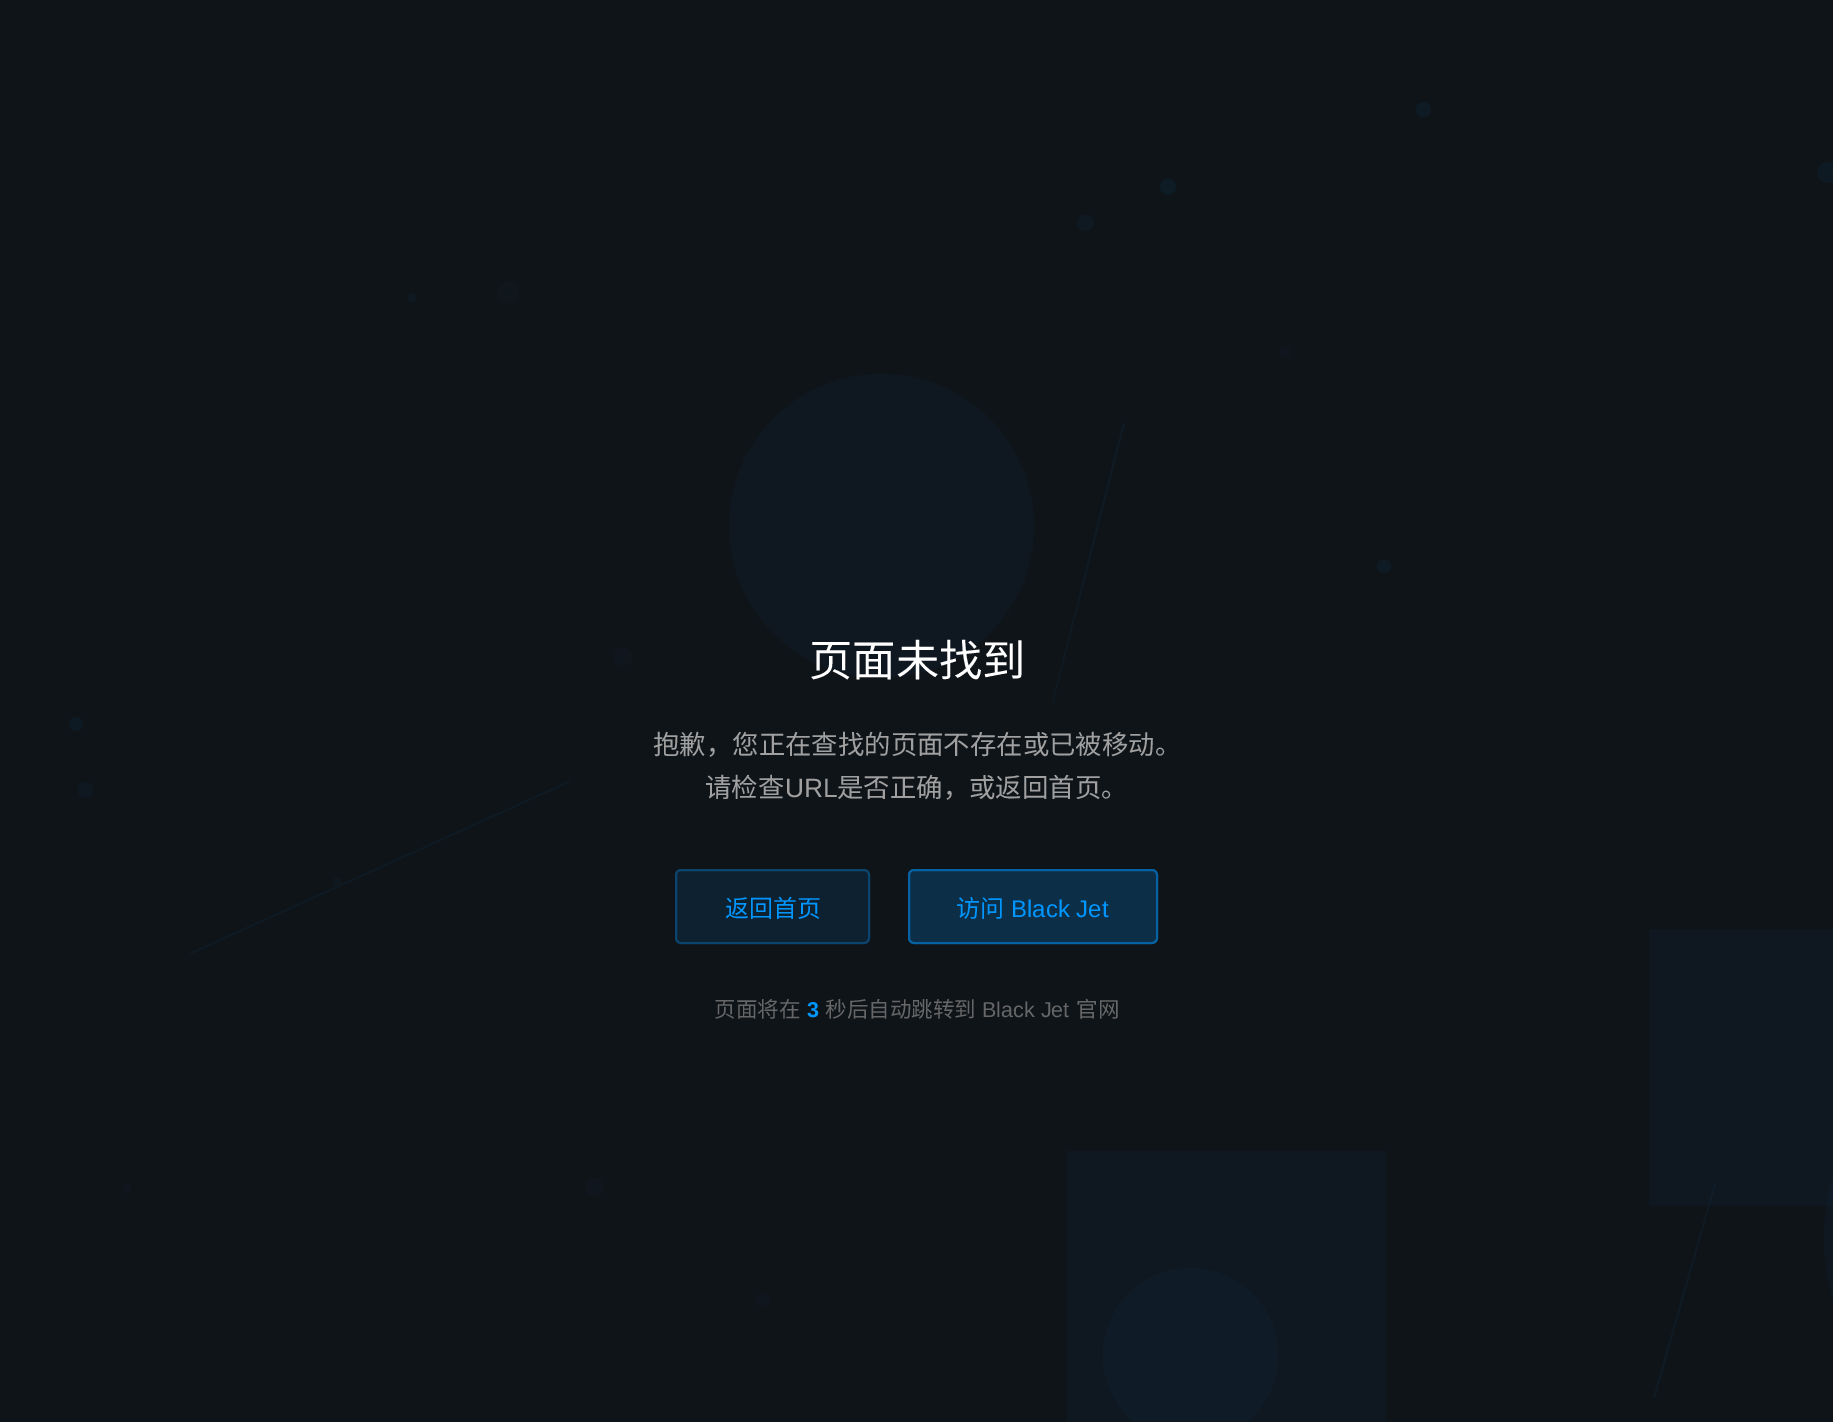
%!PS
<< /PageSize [1833 1422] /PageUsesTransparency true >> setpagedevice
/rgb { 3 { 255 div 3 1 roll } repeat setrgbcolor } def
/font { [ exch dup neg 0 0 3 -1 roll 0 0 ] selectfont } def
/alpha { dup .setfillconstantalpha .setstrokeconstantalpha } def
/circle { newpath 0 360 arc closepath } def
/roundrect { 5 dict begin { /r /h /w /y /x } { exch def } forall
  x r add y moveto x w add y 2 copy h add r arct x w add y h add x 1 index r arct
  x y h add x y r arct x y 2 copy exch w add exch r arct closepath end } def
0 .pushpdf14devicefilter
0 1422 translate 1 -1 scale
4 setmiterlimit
15 20 25 rgb
0 0 1833 1422 rectfill
14 26 36 rgb
1423.5 109.5 7.5 circle fill
14 26 35 rgb
1827.5 172.5 10.5 circle fill
14 28 38 rgb
1168 187 8 circle fill
14 25 34 rgb
1077 215 17 16 8 roundrect fill
408 293 8 9 4 roundrect fill
15 22 28 rgb
508.5 292.5 10.5 circle fill
15 22 29 rgb
1285 352 5 circle fill
15 24 32 rgb
729 374 305 304 152 roundrect fill
14 27 37 rgb
1052 703 moveto 1123 423 lineto 1125 423 lineto 1053 703 lineto closepath fill
14 26 36 rgb
1377 560 14 13 6.5 roundrect fill
15 22 29 rgb
623 657 9 circle fill
14 26 35 rgb
76 724 7 circle fill
15 24 33 rgb
78 782 15 16 7.5 roundrect fill
14 27 37 rgb
570 782 moveto 191 954 lineto 190 953 lineto 569 781 lineto closepath fill
15 23 31 rgb
333 878 8 7 3.5 roundrect fill
15 22 29 rgb
594 1187 9 circle fill
15 24 32 rgb
1190.5 1355.5 87.5 circle fill
0.03 alpha
0 150 255 rgb
1067 1151 319 271 rectfill
1 alpha
15 24 32 rgb
1824 1032 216 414 206.5 roundrect fill
0.03 alpha
0 150 255 rgb
1649 929 184 277 rectfill
1 alpha
15 22 29 rgb
123 1184 8 9 4 roundrect fill
0.05 alpha
0 150 255 rgb
1716 1183 moveto 1655 1398 lineto 1653 1398 lineto 1715 1182 lineto closepath fill
1 alpha
15 22 29 rgb
755 1293 15 14 7 roundrect fill
14 33 48 rgb
675 869 195 75 6 roundrect fill
0.3 alpha
0 150 255 rgb
2 setlinewidth
676 870 193 73 5 roundrect stroke
1 alpha
12 46 71 rgb
908 869 250 75 6 roundrect fill
0.5 alpha
0 150 255 rgb
909 870 248 73 5 roundrect stroke
/NotoSansCJKSC-Regular 43.25 font
1 alpha
255 255 255 rgb
809 676 moveto (页面未找到) show
/NotoSansCJKSC-Regular 26.4 font
160 160 160 rgb
653 754 moveto (抱歉，您正在查找的页面不存在或已被移动。) show
705 797 moveto (请检查) show
/LiberationSans-Regular 26.4 font
785 797 moveto (URL) show
/NotoSansCJKSC-Regular 26.4 font
837 797 moveto (是否正确，或返回首页。) show
/NotoSansCJKSC-Regular 24 font
0 150 255 rgb
725 917 moveto (返回首页) show
956 917 moveto (访问) show
/LiberationSans-Regular 24 font
1011 917 moveto (Black Jet) show
/NotoSansCJKSC-Regular 21.5 font
102 102 102 rgb
714 1017 moveto (页面将在) show
/LiberationSans-Bold 21.5 font
0 150 255 rgb
807 1017 moveto (3) show
/NotoSansCJKSC-Regular 21.5 font
102 102 102 rgb
825 1017 moveto (秒后自动跳转到) show
/LiberationSans-Regular 21.5 font
982 1017 moveto (Black Jet) show
/NotoSansCJKSC-Regular 21.5 font
1076 1017 moveto (官网) show
.poppdf14devicefilter showpage
